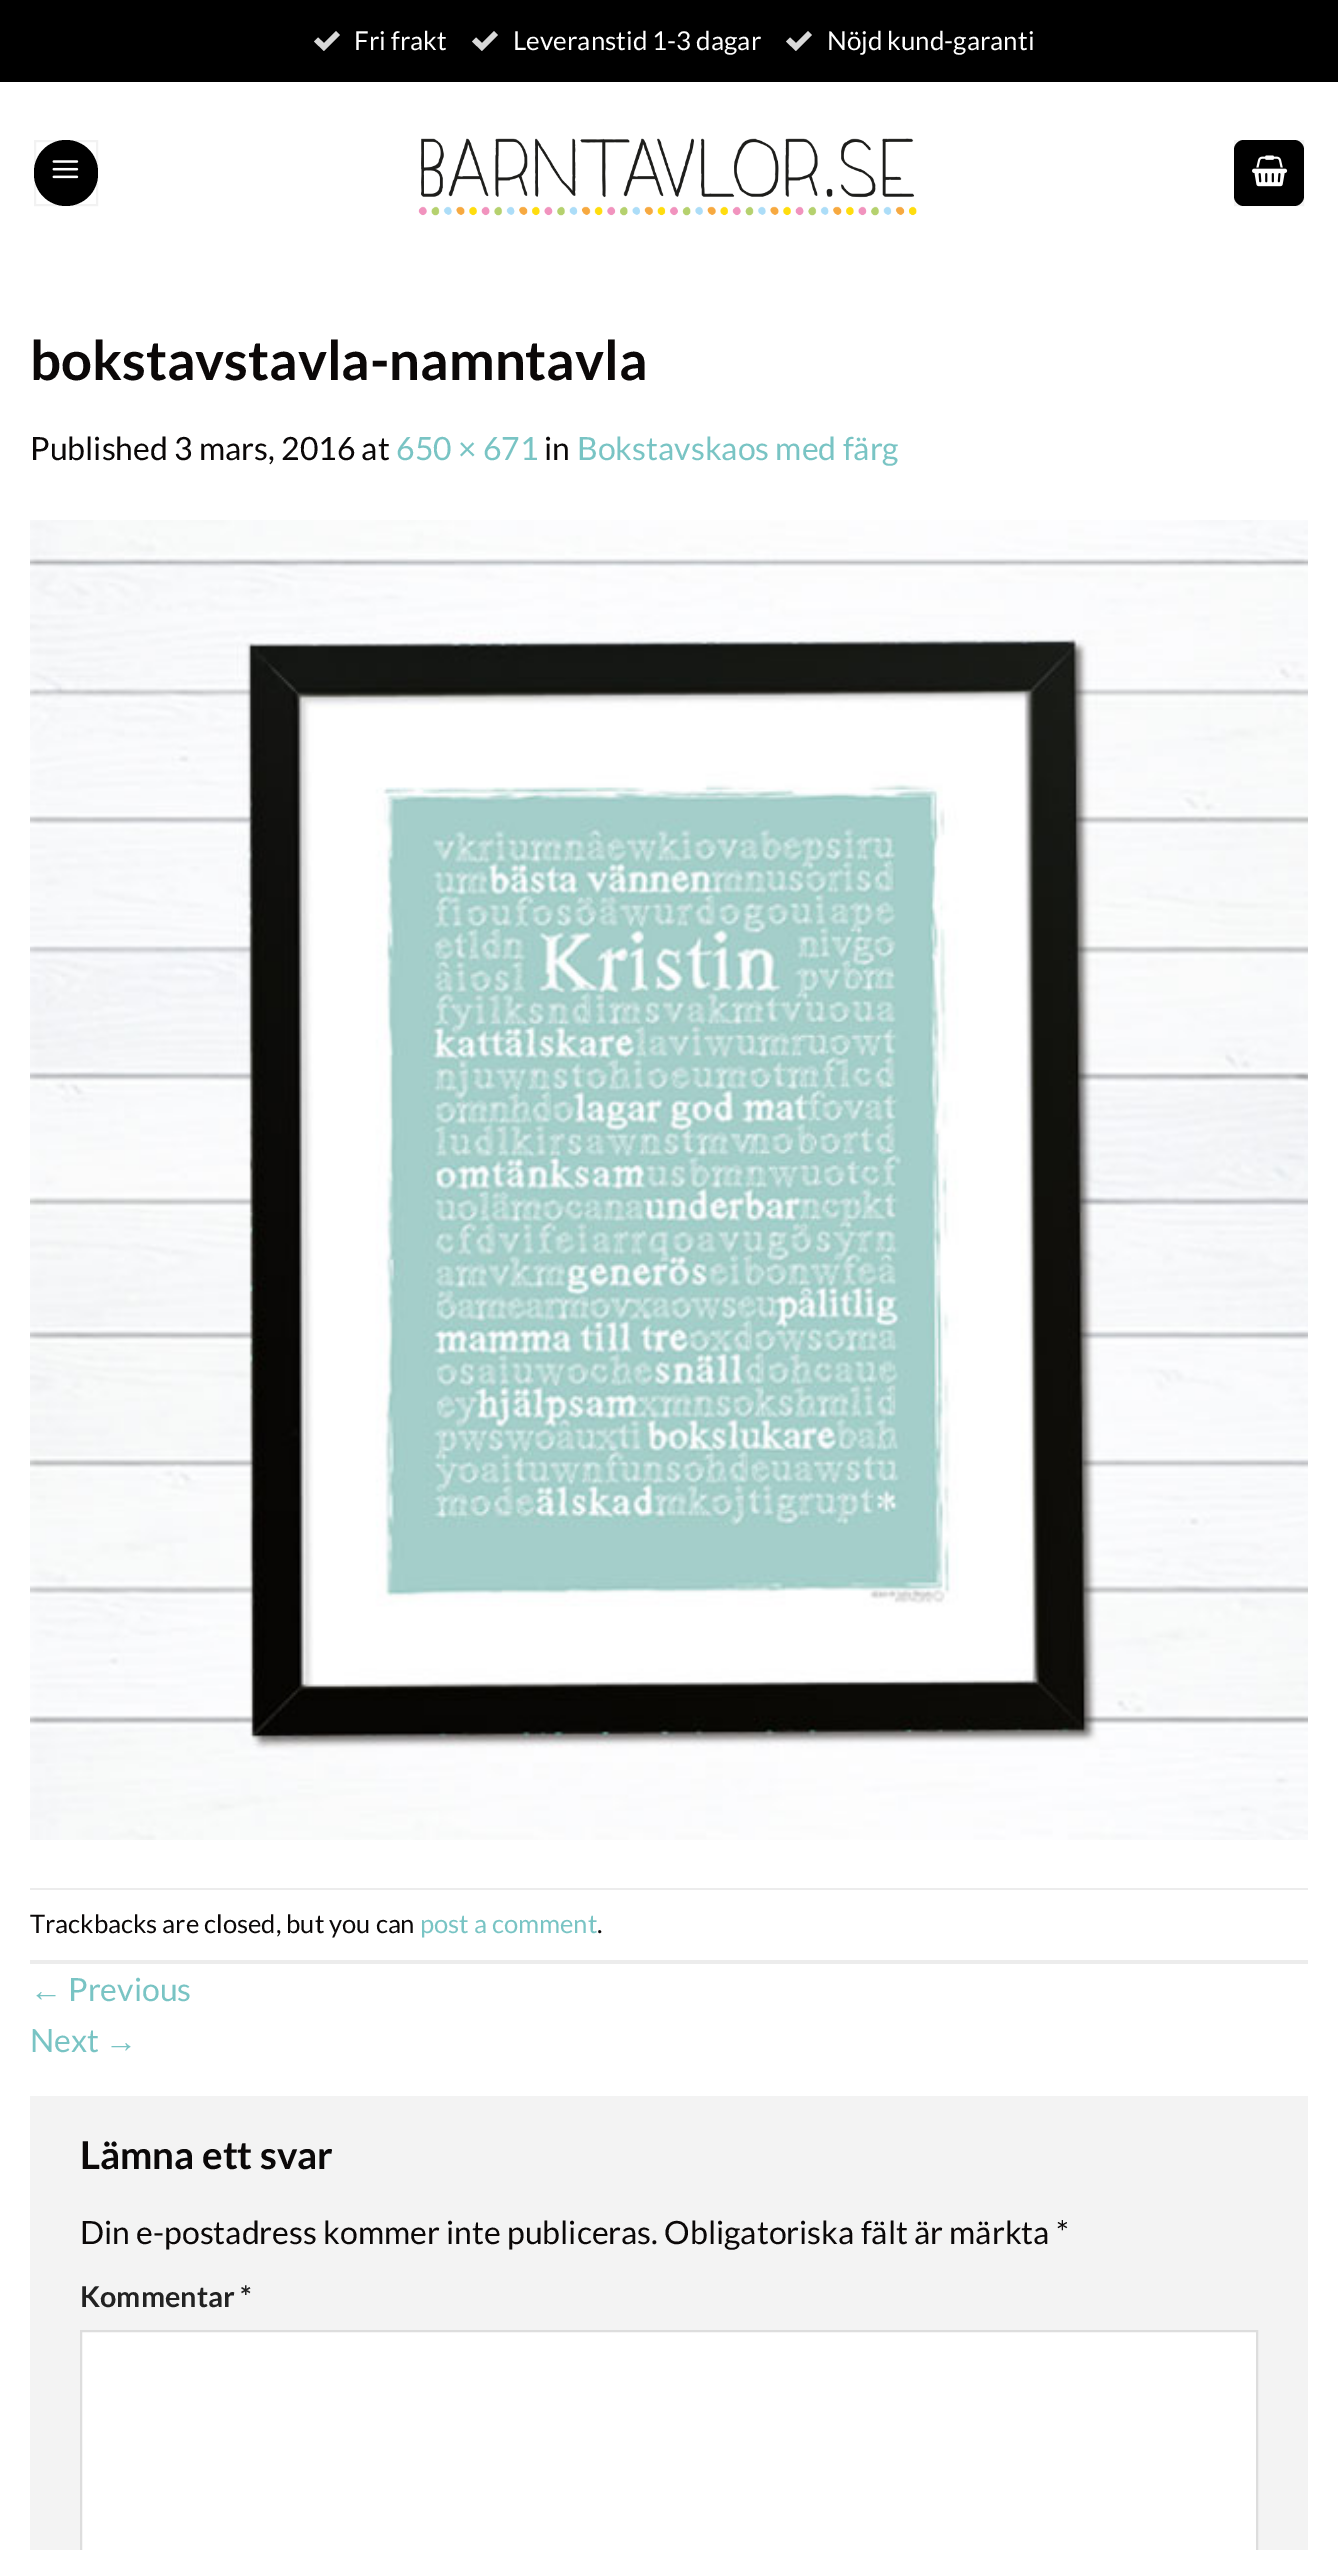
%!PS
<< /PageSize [1338 2550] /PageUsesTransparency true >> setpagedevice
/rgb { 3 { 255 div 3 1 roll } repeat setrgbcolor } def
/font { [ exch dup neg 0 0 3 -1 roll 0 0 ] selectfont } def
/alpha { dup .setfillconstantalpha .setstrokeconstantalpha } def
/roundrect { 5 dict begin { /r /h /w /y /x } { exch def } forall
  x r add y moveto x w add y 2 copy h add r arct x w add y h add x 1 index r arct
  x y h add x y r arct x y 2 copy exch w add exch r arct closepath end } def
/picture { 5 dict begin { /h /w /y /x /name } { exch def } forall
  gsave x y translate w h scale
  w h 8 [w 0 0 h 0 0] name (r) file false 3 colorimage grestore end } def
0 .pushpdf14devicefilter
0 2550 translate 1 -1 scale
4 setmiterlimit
0 0 0 rgb
0 0 1338 2550 rectfill
217 217 217 rgb
336 31 moveto 324 43 lineto 318 37.5 lineto 314 41.5 lineto 324 51 lineto 340 35 lineto closepath fill
494 31 moveto 482 43 lineto 476 37.5 lineto 472 41.5 lineto 482 51 lineto 498 35 lineto closepath fill
808 31 moveto 796 43 lineto 790 37.5 lineto 786 41.5 lineto 796 51 lineto 812 35 lineto closepath fill
255 255 255 rgb
0 82 1338 2468 rectfill
0 0 0 rgb
34 140 64 66 32 roundrect fill
0.05 alpha
2 setlinewidth
35 141 62 64 rectstroke
1 alpha
(img/1.rgb) 52 160 27 19 picture
(img/2.rgb) 418 138 499 78 picture
1234 140 70 66 10 roundrect fill
0.05 alpha
1235 141 68 64 rectstroke
1 alpha
(img/3.rgb) 1252 155 36 32 picture
(img/4.rgb) 30 520 1278 1320 picture
[
  [30 1888 1278 2 236 236 236]
  [30 1960 1278 4 236 236 236]
  [30 2096 1278 454 243 243 243]
] { aload pop rgb rectfill } forall
255 255 255 rgb
81 2331 moveto 1257 2331 lineto 1257 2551 lineto 81 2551 lineto closepath gsave fill grestore
221 221 221 rgb
stroke
/Lato-Regular 26 font
255 255 255 rgb
[
  [(Fri frakt) 354 50]
  [(Leveranstid 1-3 dagar) 513 50]
  [(Nöjd kund-garanti) 827 50]
] { aload pop moveto show } forall
/Lato-Bold 54.4 font
11 8 8 rgb
30 380 moveto (bokstavstavla-namntavla) show
/Lato-Regular 32 font
30 460 moveto (Published 3 mars, 2016 at) show
121 196 196 rgb
396 460 moveto (650 × 671) show
11 8 8 rgb
544 460 moveto (in) show
121 196 196 rgb
577 460 moveto (Bokstavskaos med färg) show
/Lato-Regular 25.6 font
11 8 8 rgb
30 1933 moveto (Trackbacks are closed, but you can) show
121 196 196 rgb
420 1933 moveto (post a comment) show
11 8 8 rgb
597 1933 moveto (.) show
/LiberationSans-Regular 32 font
121 196 196 rgb
30 2001 moveto (←) show
/Lato-Regular 32 font
68 2001 moveto (Previous) show
30 2052 moveto (Next) show
/LiberationSans-Regular 32 font
105 2052 moveto (→) show
/Lato-Bold 38.5 font
11 8 8 rgb
80 2169 moveto (Lämna ett svar) show
/Lato-Regular 32 font
80 2244 moveto (Din e-postadress kommer inte publiceras. Obligatoriska fält är märkta *) show
/Lato-Bold 28.75 font
34 34 34 rgb
80 2307 moveto (Kommentar *) show
.poppdf14devicefilter showpage
